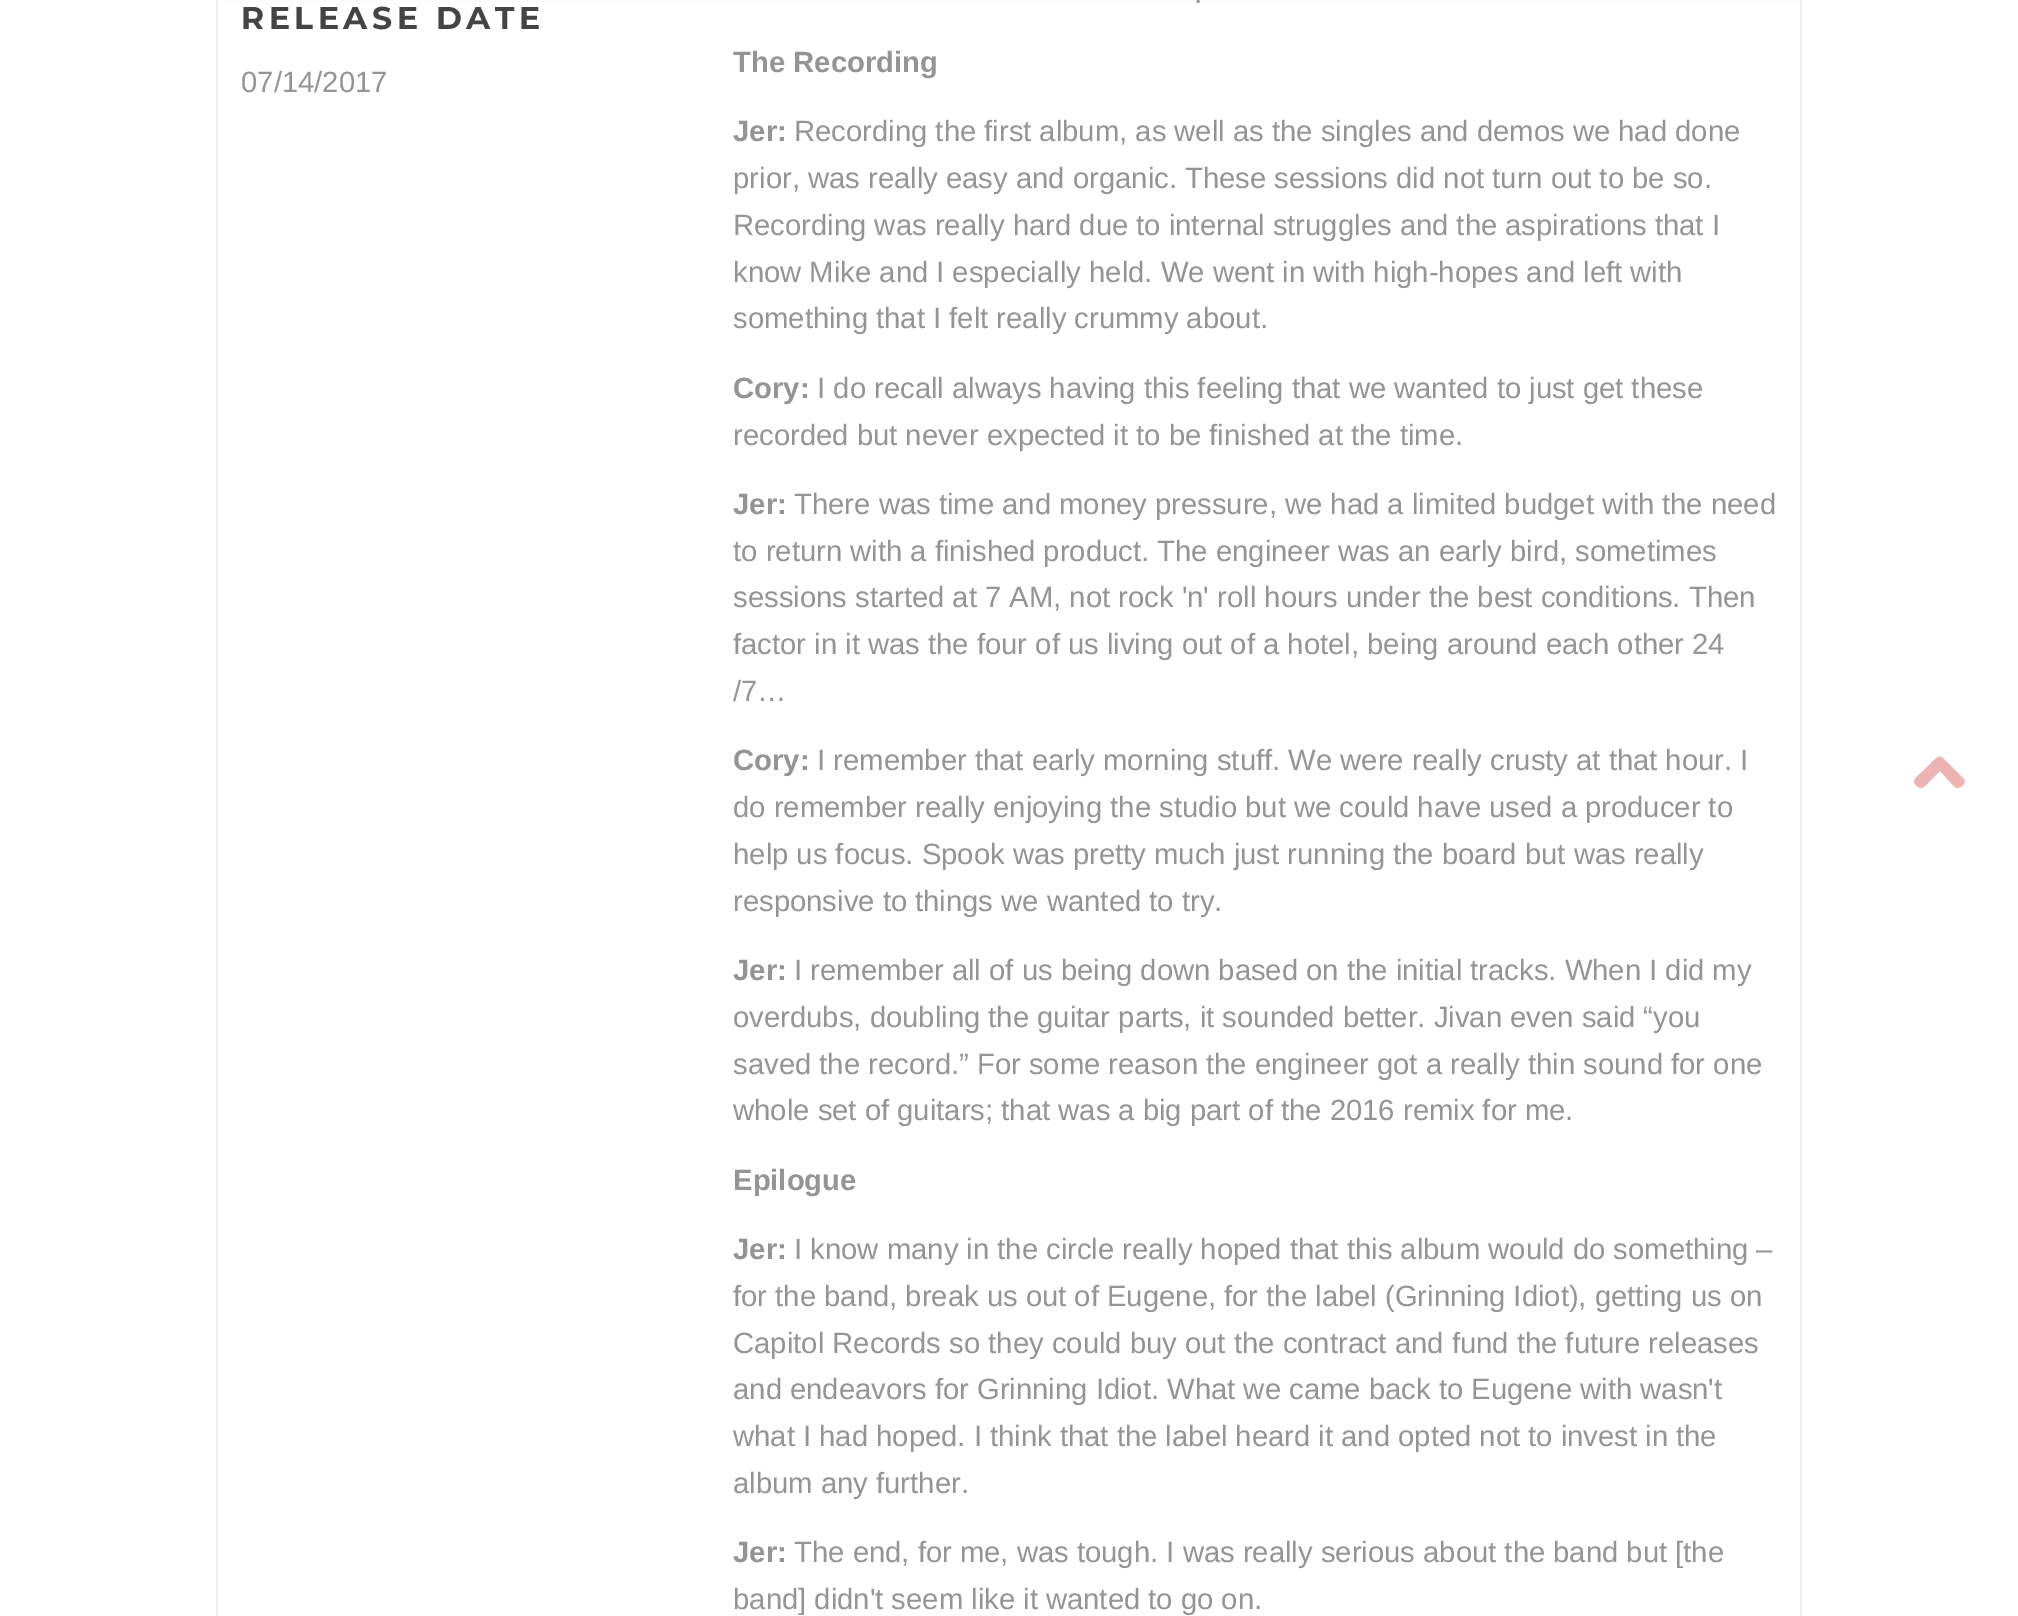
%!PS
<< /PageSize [2018 1616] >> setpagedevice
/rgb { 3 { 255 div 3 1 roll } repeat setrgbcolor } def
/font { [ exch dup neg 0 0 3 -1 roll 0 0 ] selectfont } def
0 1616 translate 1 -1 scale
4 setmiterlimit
255 255 255 rgb
0 0 2018 1616 rectfill
240 240 240 rgb
2 setlinewidth
217 -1 1584 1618 rectstroke
238 179 179 rgb
1964 779 moveto 1965 780 1965 783 1964 784 curveto 1957 791 1956 788 1950 782 curveto 1940 771 lineto 1929 782 lineto 1923 788 1921 791 1915 784 curveto 1911 780 1920 774 1923 771 curveto 1933 761 lineto 1940 755 1940 755 1946 761 curveto closepath fill
/Montserrat-Bold 31.5 font
68 68 68 rgb
241 29 moveto 4.5 0 (RELEASE DATE) ashow
/LiberationSans-Regular 29.25 font
148 148 148 rgb
241 92 moveto (07/14/2017) show
1194 3 moveto (.) show
/LiberationSans-Bold 29.25 font
733 72 moveto (The Recording) show
733 141 moveto (Jer:) show
/LiberationSans-Regular 29.25 font
[
  [(Recording the first album, as well as the singles and demos we had done) 794 141]
  [(prior, was really easy and organic. These sessions did not turn out to be so.) 733 188]
  [(Recording was really hard due to internal struggles and the aspirations that I) 733 235]
  [(know Mike and I especially held. We went in with high-hopes and left with) 733 282]
  [(something that I felt really crummy about.) 733 328]
] { aload pop moveto show } forall
/LiberationSans-Bold 29.25 font
733 398 moveto (Cory:) show
/LiberationSans-Regular 29.25 font
817 398 moveto (I do recall always having this feeling that we wanted to just get these) show
733 445 moveto (recorded but never expected it to be finished at the time.) show
/LiberationSans-Bold 29.25 font
733 514 moveto (Jer:) show
/LiberationSans-Regular 29.25 font
[
  [(There was time and money pressure, we had a limited budget with the need) 794 514]
  [(to return with a finished product. The engineer was an early bird, sometimes) 733 561]
  [(sessions started at 7 AM, not rock 'n' roll hours under the best conditions. Then) 733 607]
  [(factor in it was the four of us living out of a hotel, being around each other 24) 733 654]
  [(/7…) 733 701]
] { aload pop moveto show } forall
/LiberationSans-Bold 29.25 font
733 770 moveto (Cory:) show
/LiberationSans-Regular 29.25 font
[
  [(I remember that early morning stuff. We were really crusty at that hour. I) 817 770]
  [(do remember really enjoying the studio but we could have used a producer to) 733 817]
  [(help us focus. Spook was pretty much just running the board but was really) 733 864]
  [(responsive to things we wanted to try.) 733 911]
] { aload pop moveto show } forall
/LiberationSans-Bold 29.25 font
733 980 moveto (Jer:) show
/LiberationSans-Regular 29.25 font
[
  [(I remember all of us being down based on the initial tracks. When I did my) 794 980]
  [(overdubs, doubling the guitar parts, it sounded better. Jivan even said “you) 733 1027]
  [(saved the record.” For some reason the engineer got a really thin sound for one) 733 1074]
  [(whole set of guitars; that was a big part of the 2016 remix for me.) 733 1120]
] { aload pop moveto show } forall
/LiberationSans-Bold 29.25 font
733 1190 moveto (Epilogue) show
733 1259 moveto (Jer:) show
/LiberationSans-Regular 29.25 font
[
  [(I know many in the circle really hoped that this album would do something –) 794 1259]
  [(for the band, break us out of Eugene, for the label \(Grinning Idiot\), getting us on) 733 1306]
  [(Capitol Records so they could buy out the contract and fund the future releases) 733 1353]
  [(and endeavors for Grinning Idiot. What we came back to Eugene with wasn't) 733 1399]
  [(what I had hoped. I think that the label heard it and opted not to invest in the) 733 1446]
  [(album any further.) 733 1493]
] { aload pop moveto show } forall
/LiberationSans-Bold 29.25 font
733 1562 moveto (Jer:) show
/LiberationSans-Regular 29.25 font
794 1562 moveto (The end, for me, was tough. I was really serious about the band but [the) show
733 1609 moveto (band] didn't seem like it wanted to go on.) show
showpage
